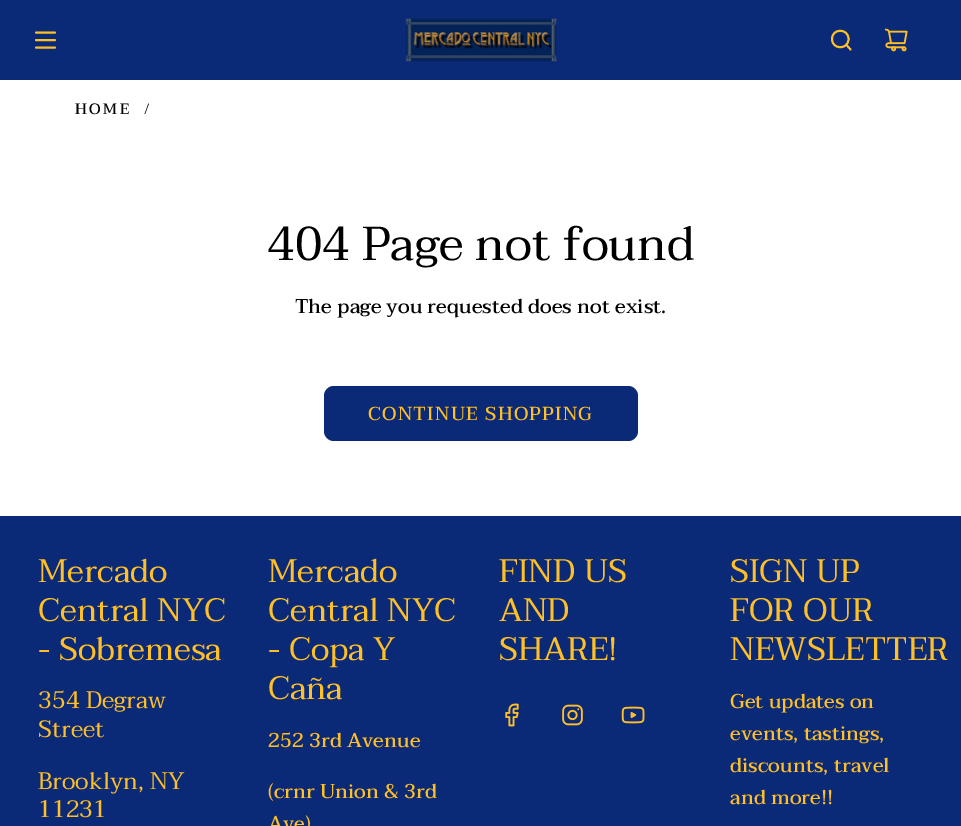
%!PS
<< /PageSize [961 826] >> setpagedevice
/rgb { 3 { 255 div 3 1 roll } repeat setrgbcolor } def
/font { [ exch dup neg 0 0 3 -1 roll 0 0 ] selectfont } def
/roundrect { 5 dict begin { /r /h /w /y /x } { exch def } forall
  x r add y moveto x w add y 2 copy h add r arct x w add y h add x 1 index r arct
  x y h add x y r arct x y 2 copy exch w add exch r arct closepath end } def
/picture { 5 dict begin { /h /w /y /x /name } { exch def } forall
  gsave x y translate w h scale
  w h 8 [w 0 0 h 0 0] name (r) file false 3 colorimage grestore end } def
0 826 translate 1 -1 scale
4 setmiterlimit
255 255 255 rgb
0 0 961 826 rectfill
10 42 119 rgb
0 0 961 80 rectfill
255 191 39 rgb
1.9 setlinewidth
1 setlinecap
1 setlinejoin
36 32.5 moveto 55 32.5 lineto 36 40 moveto 55 40 lineto 36 47.5 moveto 55 47.5 lineto stroke
(img/1.rgb) 405 18 152 44 picture
846.5 45 moveto 850.5 49.5 lineto 832 39 moveto 832 50 848.5 50 848.5 39 curveto 848.5 28 832 28 832 39 curveto closepath stroke
(img/2.rgb) 884 28 24 24 picture
10 42 119 rgb
324 386 314 55 10 roundrect fill
0 516 961 310 rectfill
(img/3.rgb) 505 703 14 24 picture
(img/4.rgb) 562 704 21 22 picture
(img/5.rgb) 621 706 24 18 picture
/Taviraj-Medium 15 font
0 0 0 rgb
75 114 moveto 2.5 0 (HOME) ashow
144 114 moveto (/) show
/Taviraj-Regular 47.5 font
267 260 moveto (404 Page not found) show
/Taviraj-Medium 20 font
295 313 moveto (The page you requested does not exist.) show
/Taviraj-Medium 18.75 font
255 191 39 rgb
368 420 moveto 1.25 0 (CONTINUE SHOPPING) ashow
/Taviraj-Regular 32.5 font
[
  [(Mercado) 38 582]
  [(Central NYC) 38 621]
  [(- Sobremesa) 38 660]
] { aload pop moveto show } forall
/Taviraj-Regular 23.75 font
[
  [(354 Degraw) 38 708]
  [(Street) 38 737]
  [(Brooklyn, NY) 38 789]
  [(11231) 38 817]
] { aload pop moveto show } forall
/Taviraj-Regular 32.5 font
[
  [(Mercado) 268 582]
  [(Central NYC) 268 621]
  [(- Copa Y) 268 660]
  [(Caña) 268 699]
] { aload pop moveto show } forall
/Taviraj-Medium 20 font
[
  [(252 3rd Avenue) 268 747]
  [(\(crnr Union & 3rd) 268 798]
  [(Ave\)) 268 830]
] { aload pop moveto show } forall
/Taviraj-Regular 32.5 font
[
  [(FIND US) 499 582]
  [(AND) 499 621]
  [(SHARE!) 499 660]
  [(SIGN UP) 730 582]
  [(FOR OUR) 730 621]
  [(NEWSLETTER) 730 660]
] { aload pop moveto show } forall
/Taviraj-Medium 20 font
[
  [(Get updates on) 730 708]
  [(events, tastings,) 730 740]
  [(discounts, travel) 730 772]
  [(and more!!) 730 804]
] { aload pop moveto show } forall
showpage
